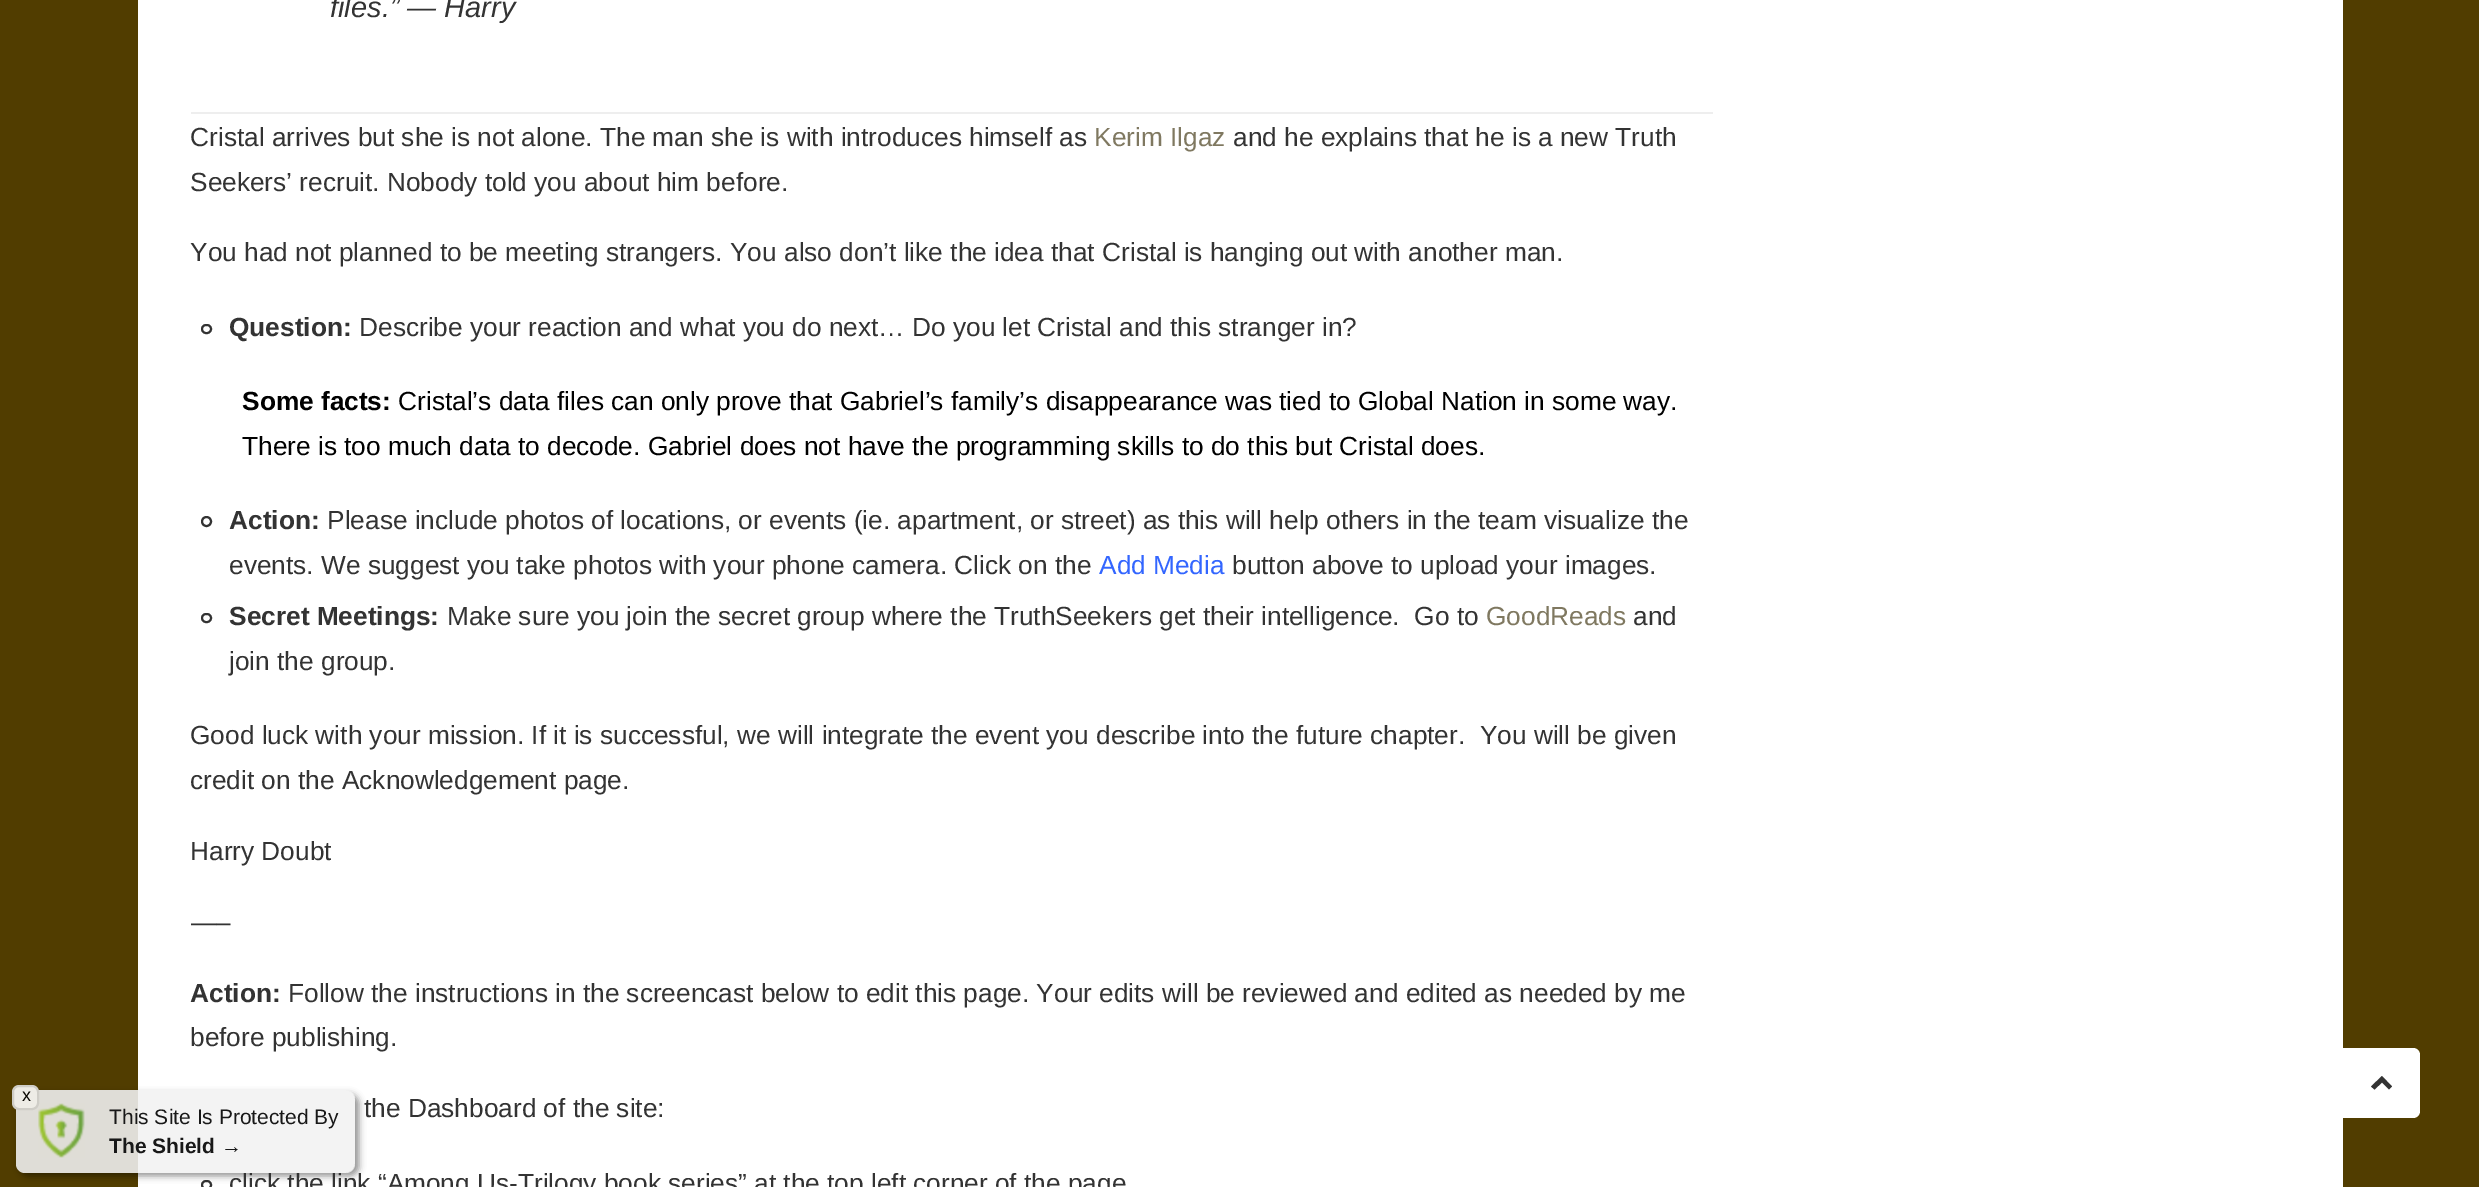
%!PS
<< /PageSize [2479 1187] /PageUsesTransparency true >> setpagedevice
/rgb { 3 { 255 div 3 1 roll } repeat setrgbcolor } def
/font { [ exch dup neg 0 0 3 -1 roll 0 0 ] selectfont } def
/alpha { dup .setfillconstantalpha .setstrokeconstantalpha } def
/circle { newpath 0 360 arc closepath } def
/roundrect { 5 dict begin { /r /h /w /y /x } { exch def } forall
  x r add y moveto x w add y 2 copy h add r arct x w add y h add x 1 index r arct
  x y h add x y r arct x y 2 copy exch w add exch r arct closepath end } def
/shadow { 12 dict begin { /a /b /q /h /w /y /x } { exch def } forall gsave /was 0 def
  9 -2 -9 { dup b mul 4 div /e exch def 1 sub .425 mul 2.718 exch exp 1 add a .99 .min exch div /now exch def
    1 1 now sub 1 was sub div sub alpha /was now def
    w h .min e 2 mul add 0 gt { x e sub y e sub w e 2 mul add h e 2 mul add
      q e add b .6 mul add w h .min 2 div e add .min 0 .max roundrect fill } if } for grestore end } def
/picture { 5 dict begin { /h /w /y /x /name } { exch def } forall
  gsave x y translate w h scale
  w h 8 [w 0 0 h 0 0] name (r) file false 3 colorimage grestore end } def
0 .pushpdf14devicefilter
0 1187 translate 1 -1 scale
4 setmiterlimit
81 61 0 rgb
0 0 2479 1187 rectfill
255 255 255 rgb
138 0 2205 1187 rectfill
51 51 51 rgb
2 setlinewidth
202 1181 9 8 4 roundrect stroke
gsave
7 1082 moveto 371 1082 lineto 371 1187 lineto 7 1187 lineto closepath 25 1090 moveto 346 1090 lineto 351 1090 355 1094 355 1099 curveto 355 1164 lineto 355 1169 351 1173 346 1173 curveto 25 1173 lineto 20 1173 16 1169 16 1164 curveto 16 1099 lineto 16 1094 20 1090 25 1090 curveto closepath eoclip newpath
0 0 0 rgb
19 1094 340 82 9 3.5 0.42 shadow
grestore
0.89 alpha
241 241 241 rgb
16 1090 339 83 9 roundrect fill
1 alpha
(img/1.rgb) 38 1103 47 55 picture
238 236 230 rgb
13 1086 25 23 6 roundrect gsave fill grestore
207 205 199 rgb
stroke
238 238 238 rgb
191 112 1522 2 rectfill
51 51 51 rgb
202 325 9 8 4 roundrect stroke
206.5 521.5 4.5 circle stroke
202 614 9 8 4 roundrect stroke
255 255 255 rgb
2343 1048 moveto 2413 1048 lineto 2417 1048 2420 1051 2420 1055 curveto 2420 1111 lineto 2420 1115 2417 1118 2413 1118 curveto 2343 1118 lineto closepath fill
51 51 51 rgb
2371 1086.5 moveto 2382 1076 lineto 2392 1086.5 lineto 2389 1089.5 lineto 2382 1082.5 lineto 2374.5 1089.5 lineto closepath fill
/LiberationSans-Regular 18 font
8 6 0 rgb
22 1101 moveto (x) show
/LiberationSans-Regular 21 font
24 24 24 rgb
109 1124 moveto (This Site Is Protected By) show
/LiberationSans-Bold 21 font
109 1153 moveto (The Shield →) show
/LiberationSans-Italic 29 font
51 51 51 rgb
330 17 moveto (files.” — Harry) show
/LiberationSans-Regular 26.25 font
190 146 moveto (Cristal arrives but she is not alone. The man she is with introduces himself as) show
127 120 96 rgb
1094 146 moveto (Kerim Ilgaz) show
51 51 51 rgb
[
  [(and he explains that he is a new Truth) 1233 146]
  [(Seekers’ recruit. Nobody told you about him before.) 190 191]
  [(You had not planned to be meeting strangers. You also don’t like the idea that Cristal is hanging out with another man.) 190 261]
] { aload pop moveto show } forall
/LiberationSans-Bold 26.25 font
229 336 moveto (Question:) show
/LiberationSans-Regular 26.25 font
359 336 moveto (Describe your reaction and what you do next… Do you let Cristal and this stranger in?) show
/LiberationSans-Bold 26.25 font
0 0 0 rgb
242 410 moveto (Some facts:) show
/LiberationSans-Regular 26.25 font
398 410 moveto (Cristal’s data files can only prove that Gabriel’s family’s disappearance was tied to Global Nation in some way.) show
242 455 moveto (There is too much data to decode. Gabriel does not have the programming skills to do this but Cristal does.) show
/LiberationSans-Bold 26.25 font
51 51 51 rgb
229 529 moveto (Action:) show
/LiberationSans-Regular 26.25 font
327 529 moveto (Please include photos of locations, or events \(ie. apartment, or street\) as this will help others in the team visualize the) show
229 574 moveto (events. We suggest you take photos with your phone camera. Click on the) show
51 102 255 rgb
1099 574 moveto (Add Media) show
51 51 51 rgb
1232 574 moveto (button above to upload your images.) show
/LiberationSans-Bold 26.25 font
229 625 moveto (Secret Meetings:) show
/LiberationSans-Regular 26.25 font
447 625 moveto (Make sure you join the secret group where the TruthSeekers get their intelligence.  Go to) show
127 120 96 rgb
1486 625 moveto (GoodReads) show
51 51 51 rgb
[
  [(and) 1633 625]
  [(join the group.) 229 670]
  [(Good luck with your mission. If it is successful, we will integrate the event you describe into the future chapter.  You will be given) 190 744]
  [(credit on the Acknowledgement page.) 190 789]
  [(Harry Doubt) 190 860]
] { aload pop moveto show } forall
gsave
191 0 1522 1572 rectclip
190 931 moveto (—–) show
grestore
/LiberationSans-Bold 26.25 font
190 1002 moveto (Action:) show
/LiberationSans-Regular 26.25 font
[
  [(Follow the instructions in the screencast below to edit this page. Your edits will be reviewed and edited as needed by me) 288 1002]
  [(before publishing.) 190 1046]
  [(the Dashboard of the site:) 364 1117]
  [(click the link “Among Us-Trilogy book series” at the top left corner of the page) 229 1192]
] { aload pop moveto show } forall
.poppdf14devicefilter showpage
